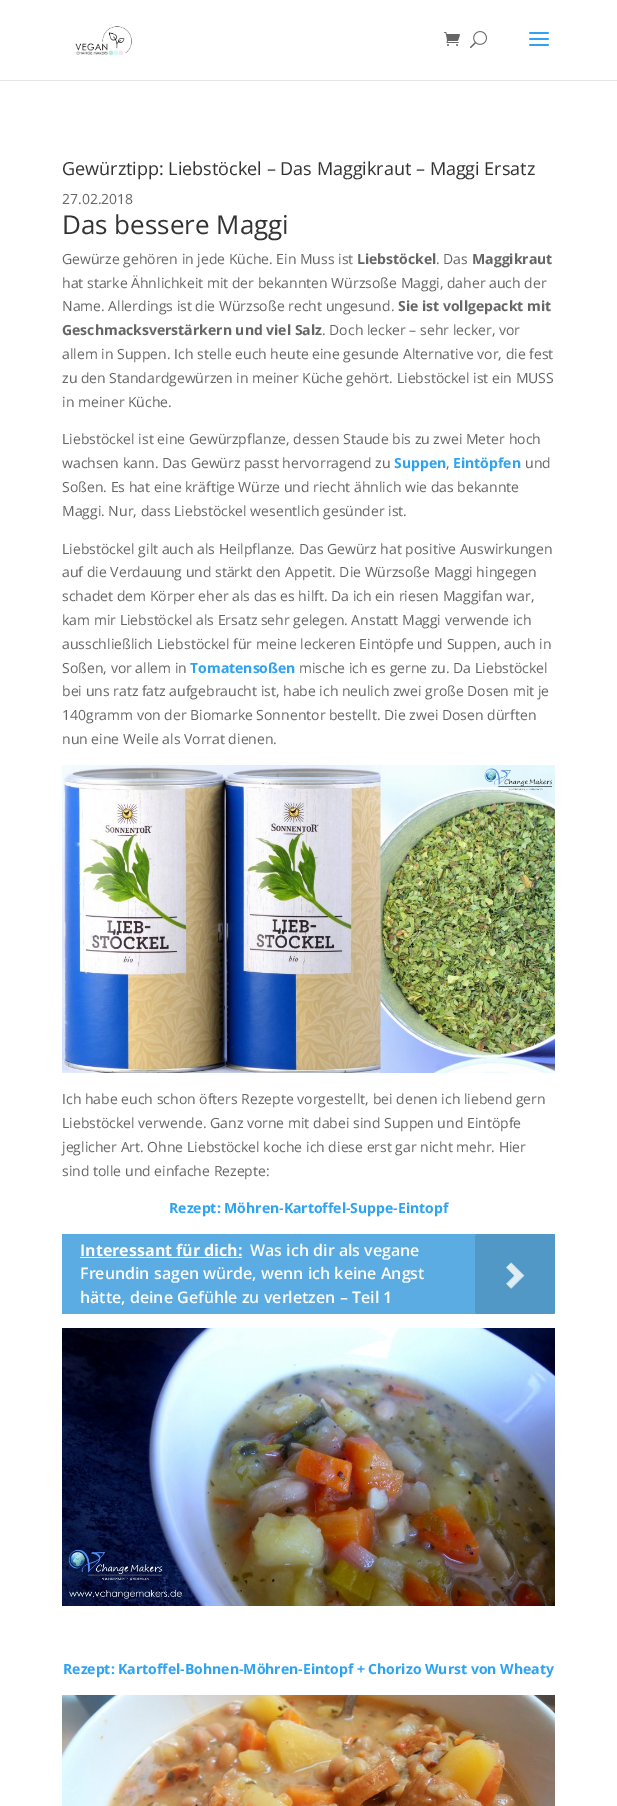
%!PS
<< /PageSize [617 1806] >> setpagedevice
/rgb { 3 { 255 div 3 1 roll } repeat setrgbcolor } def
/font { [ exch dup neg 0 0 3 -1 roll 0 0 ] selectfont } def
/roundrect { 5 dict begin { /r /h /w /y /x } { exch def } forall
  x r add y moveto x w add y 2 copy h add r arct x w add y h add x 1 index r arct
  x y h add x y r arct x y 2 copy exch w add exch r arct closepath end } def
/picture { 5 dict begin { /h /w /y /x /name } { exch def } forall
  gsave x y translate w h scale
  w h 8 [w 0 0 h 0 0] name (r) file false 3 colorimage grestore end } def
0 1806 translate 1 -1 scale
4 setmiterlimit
255 255 255 rgb
0 0 617 1806 rectfill
230 230 230 rgb
0 80 617 1 rectfill
(img/1.rgb) 75 26 57 30 picture
(img/2.rgb) 444 32 16 14 picture
(img/3.rgb) 470 31 17 18 picture
(img/4.rgb) 529 32 20 14 picture
(img/5.rgb) 62 765 493 308 picture
91 172 226 rgb
62 1234 493 80 rectfill
255 255 255 rgb
80 1257 162 1 rectfill
82 152 198 rgb
475 1234 80 80 3 roundrect fill
(img/6.rgb) 506 1262 19 27 picture
(img/7.rgb) 62 1328 493 278 picture
(img/8.rgb) 62 1695 493 111 picture
/OpenSans-Regular 18 font
51 51 51 rgb
62 175 moveto (Gewürztipp: Liebstöckel – Das Maggikraut – Maggi Ersatz) show
/OpenSans-Regular 14 font
102 102 102 rgb
62 204 moveto (27.02.2018) show
/OpenSans-Regular 26 font
51 51 51 rgb
62 234 moveto (Das bessere Maggi) show
/OpenSans-Regular 14 font
102 102 102 rgb
62 264 moveto (Gewürze gehören in jede Küche. Ein Muss ist) show
/OpenSans-Bold 14 font
357 264 moveto (Liebstöckel) show
/OpenSans-Regular 14 font
436 264 moveto (. Das) show
/OpenSans-Bold 14 font
472 264 moveto (Maggikraut) show
/OpenSans-Regular 14 font
62 288 moveto (hat starke Ähnlichkeit mit der bekannten Würzsoße Maggi, daher auch der) show
62 311 moveto (Name. Allerdings ist die Würzsoße recht ungesund.) show
/OpenSans-Bold 14 font
398 311 moveto (Sie ist vollgepackt mit) show
62 335 moveto (Geschmacksverstärkern und viel Salz) show
/OpenSans-Regular 14 font
[
  [(. Doch lecker – sehr lecker, vor) 322 335]
  [(allem in Suppen. Ich stelle euch heute eine gesunde Alternative vor, die fest) 62 359]
  [(zu den Standardgewürzen in meiner Küche gehört. Liebstöckel ist ein MUSS) 62 383]
  [(in meiner Küche.) 62 407]
  [(Liebstöckel ist eine Gewürzpflanze, dessen Staude bis zu zwei Meter hoch) 62 444]
  [(wachsen kann. Das Gewürz passt hervorragend zu) 62 468]
] { aload pop moveto show } forall
/OpenSans-Bold 14 font
46 163 242 rgb
394 468 moveto (Suppen) show
/OpenSans-Regular 14 font
102 102 102 rgb
446 468 moveto (,) show
/OpenSans-Bold 14 font
46 163 242 rgb
453 468 moveto (Eintöpfen) show
/OpenSans-Regular 14 font
102 102 102 rgb
[
  [(und) 525 468]
  [(Soßen. Es hat eine kräftige Würze und riecht ähnlich wie das bekannte) 62 492]
  [(Maggi. Nur, dass Liebstöckel wesentlich gesünder ist.) 62 516]
  [(Liebstöckel gilt auch als Heilpflanze. Das Gewürz hat positive Auswirkungen) 62 554]
  [(auf die Verdauung und stärkt den Appetit. Die Würzsoße Maggi hingegen) 62 577]
  [(schadet dem Körper eher als das es hilft. Da ich ein riesen Maggifan war,) 62 601]
  [(kam mir Liebstöckel als Ersatz sehr gelegen. Anstatt Maggi verwende ich) 62 625]
  [(ausschließlich Liebstöckel für meine leckeren Eintöpfe und Suppen, auch in) 62 649]
  [(Soßen, vor allem in) 62 673]
] { aload pop moveto show } forall
/OpenSans-Bold 14 font
46 163 242 rgb
190 673 moveto (Tomatensoßen) show
/OpenSans-Regular 14 font
102 102 102 rgb
[
  [(mische ich es gerne zu. Da Liebstöckel) 299 673]
  [(bei uns ratz fatz aufgebraucht ist, habe ich neulich zwei große Dosen mit je) 62 696]
  [(140gramm von der Biomarke Sonnentor bestellt. Die zwei Dosen dürften) 62 720]
  [(nun eine Weile als Vorrat dienen.) 62 744]
  [(Ich habe euch schon öfters Rezepte vorgestellt, bei denen ich liebend gern) 62 1104]
  [(Liebstöckel verwende. Ganz vorne mit dabei sind Suppen und Eintöpfe) 62 1128]
  [(jeglicher Art. Ohne Liebstöckel koche ich diese erst gar nicht mehr. Hier) 62 1152]
  [(sind tolle und einfache Rezepte:) 62 1176]
] { aload pop moveto show } forall
/OpenSans-Bold 14 font
46 163 242 rgb
169 1213 moveto (Rezept: Möhren-Kartoffel-Suppe-Eintopf) show
/OpenSans-Bold 16 font
255 255 255 rgb
80 1256 moveto (Interessant für dich:) show
/OpenSans-SemiBold 16 font
[
  [(Was ich dir als vegane) 250 1256]
  [(Freundin sagen würde, wenn ich keine Angst) 80 1279]
  [(hätte, deine Gefühle zu verletzen – Teil 1) 80 1303]
] { aload pop moveto show } forall
/OpenSans-Bold 14 font
46 163 242 rgb
63 1674 moveto (Rezept: Kartoffel-Bohnen-Möhren-Eintopf + Chorizo Wurst von Wheaty) show
showpage
